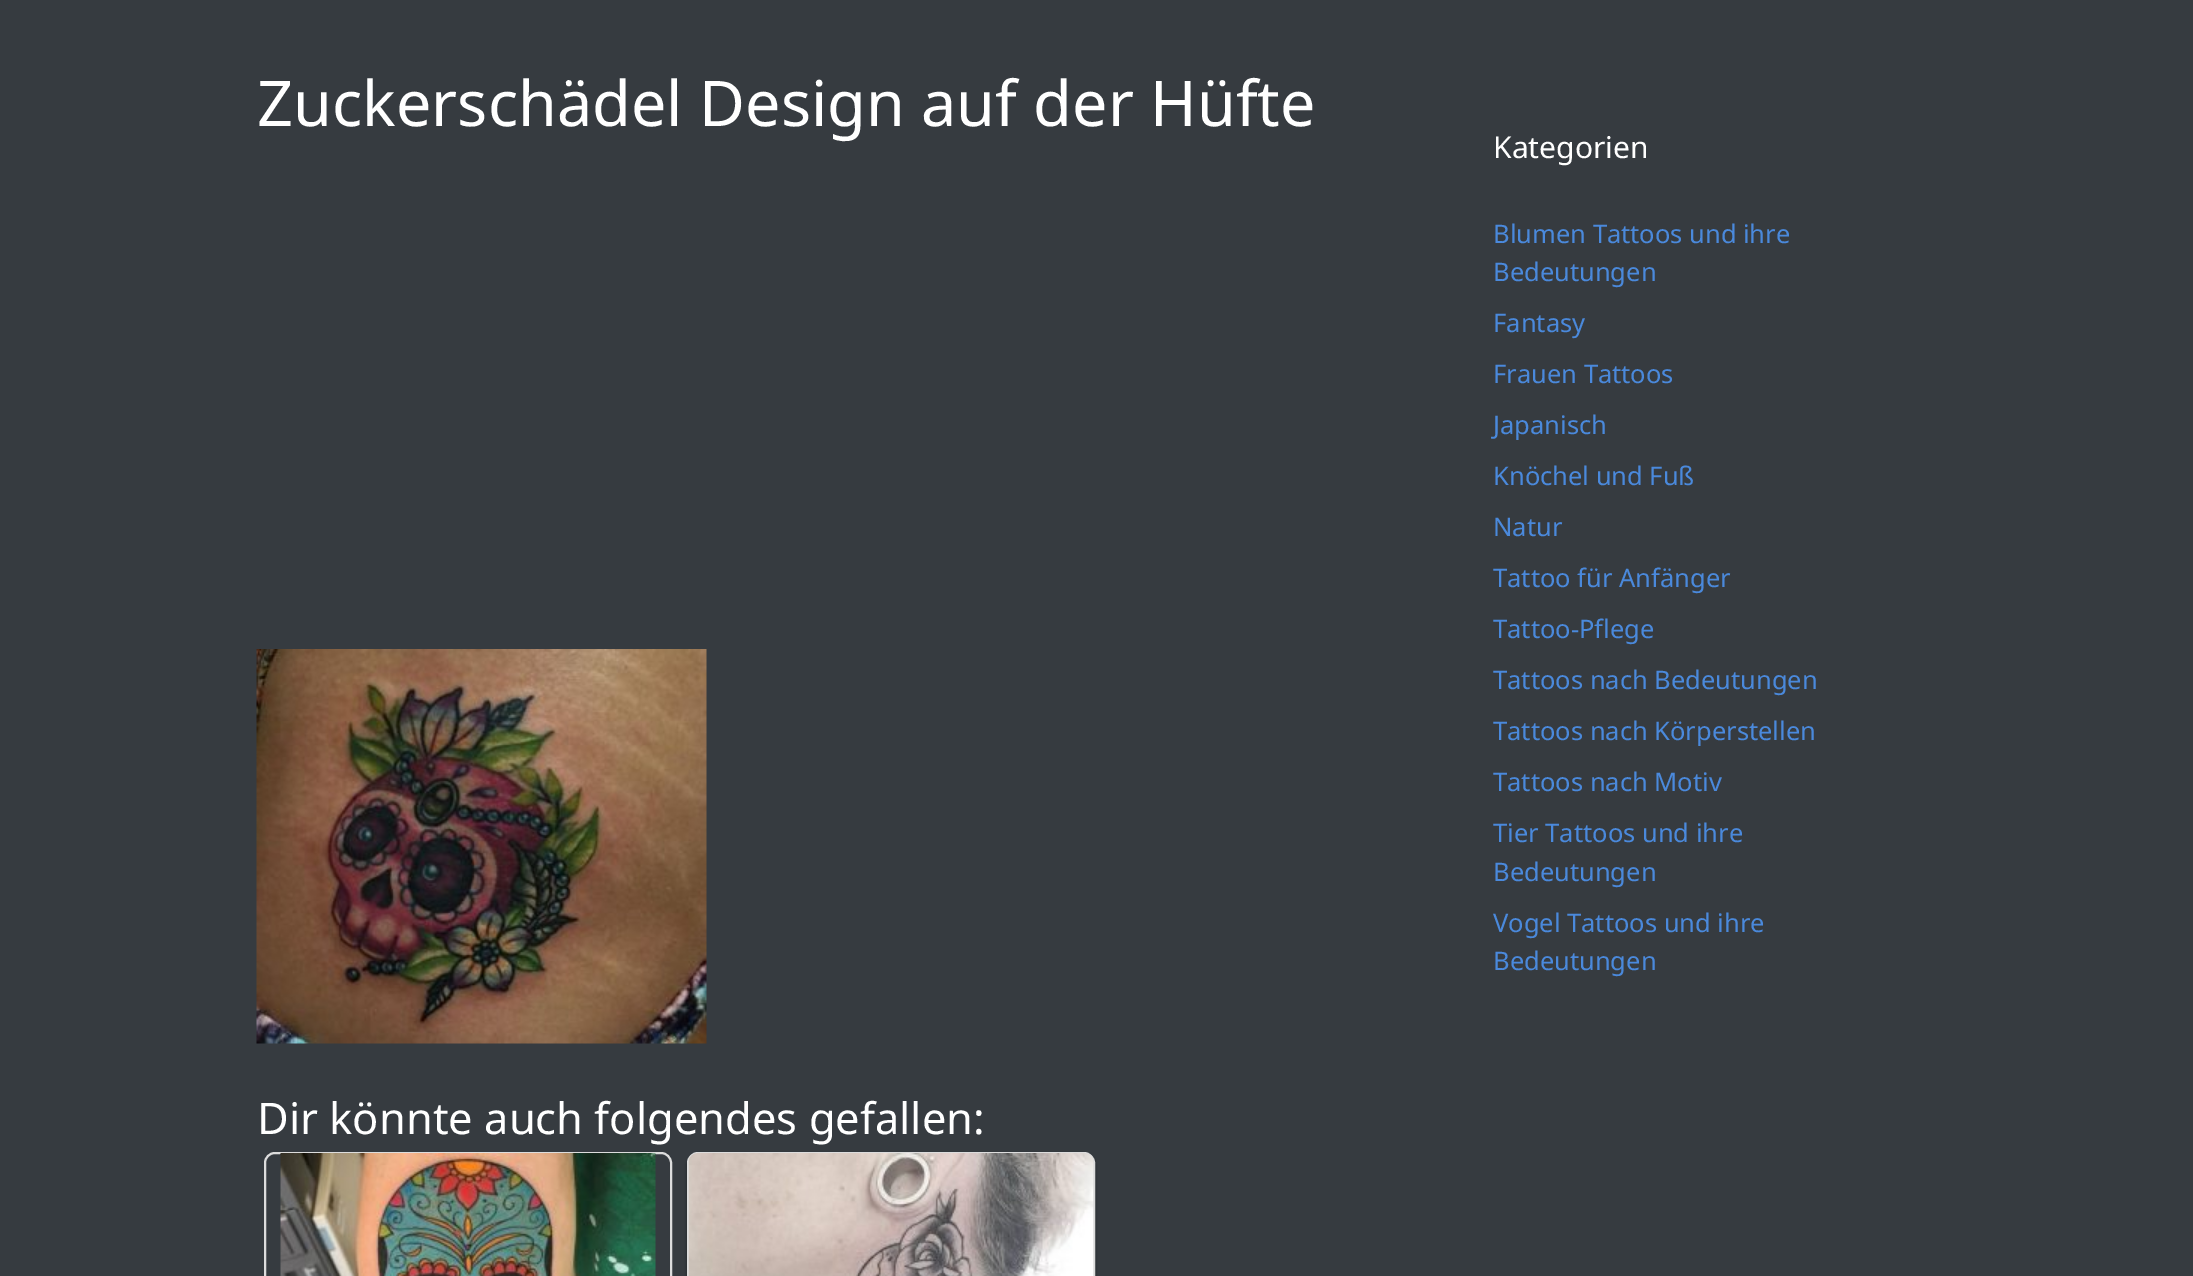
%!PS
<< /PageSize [2193 1276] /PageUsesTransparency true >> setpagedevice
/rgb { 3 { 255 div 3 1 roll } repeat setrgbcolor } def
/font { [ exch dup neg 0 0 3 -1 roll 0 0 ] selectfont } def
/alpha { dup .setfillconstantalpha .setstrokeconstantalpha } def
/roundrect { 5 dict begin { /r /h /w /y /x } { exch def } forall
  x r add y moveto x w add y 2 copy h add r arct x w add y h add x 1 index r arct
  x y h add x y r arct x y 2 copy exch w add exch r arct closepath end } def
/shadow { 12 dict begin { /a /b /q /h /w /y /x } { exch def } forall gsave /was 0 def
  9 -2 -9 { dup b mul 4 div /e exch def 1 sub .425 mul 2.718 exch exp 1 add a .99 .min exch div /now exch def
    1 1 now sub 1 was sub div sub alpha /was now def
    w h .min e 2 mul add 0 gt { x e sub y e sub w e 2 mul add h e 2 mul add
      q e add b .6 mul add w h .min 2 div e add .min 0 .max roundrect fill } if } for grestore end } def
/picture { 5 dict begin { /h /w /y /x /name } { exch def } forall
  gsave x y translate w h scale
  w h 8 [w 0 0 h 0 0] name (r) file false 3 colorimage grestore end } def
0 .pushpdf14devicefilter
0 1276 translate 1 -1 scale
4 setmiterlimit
54 59 64 rgb
0 0 2193 1276 rectfill
(img/1.rgb) 256 649 451 395 picture
221 221 221 rgb
2 setlinewidth
265 1153 406 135 10 roundrect stroke
(img/2.rgb) 280 1153 376 123 picture
0 0 0 rgb
687 1154 408 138 11 1.5 0.4 shadow
221 221 221 rgb
688 1153 406 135 10 roundrect stroke
(img/3.rgb) 688 1153 406 123 picture
/NotoSans-Regular 63 font
255 255 255 rgb
257 126 moveto (Zuckerschädel Design auf der Hüfte) show
/NotoSans-Regular 43.5 font
257 1134 moveto (Dir könnte auch folgendes gefallen:) show
/NotoSans-Regular 30 font
1493 158 moveto (Kategorien) show
/NotoSans-Regular 25.5 font
74 137 220 rgb
[
  [(Blumen Tattoos und ihre) 1493 243]
  [(Bedeutungen) 1493 281]
  [(Fantasy) 1493 332]
  [(Frauen Tattoos) 1493 383]
  [(Japanisch) 1493 434]
  [(Knöchel und Fuß) 1493 485]
  [(Natur) 1493 536]
  [(Tattoo für Anfänger) 1493 587]
  [(Tattoo-Pflege) 1493 638]
  [(Tattoos nach Bedeutungen) 1493 689]
  [(Tattoos nach Körperstellen) 1493 740]
  [(Tattoos nach Motiv) 1493 791]
  [(Tier Tattoos und ihre) 1493 842]
  [(Bedeutungen) 1493 881]
  [(Vogel Tattoos und ihre) 1493 932]
  [(Bedeutungen) 1493 970]
] { aload pop moveto show } forall
.poppdf14devicefilter showpage
